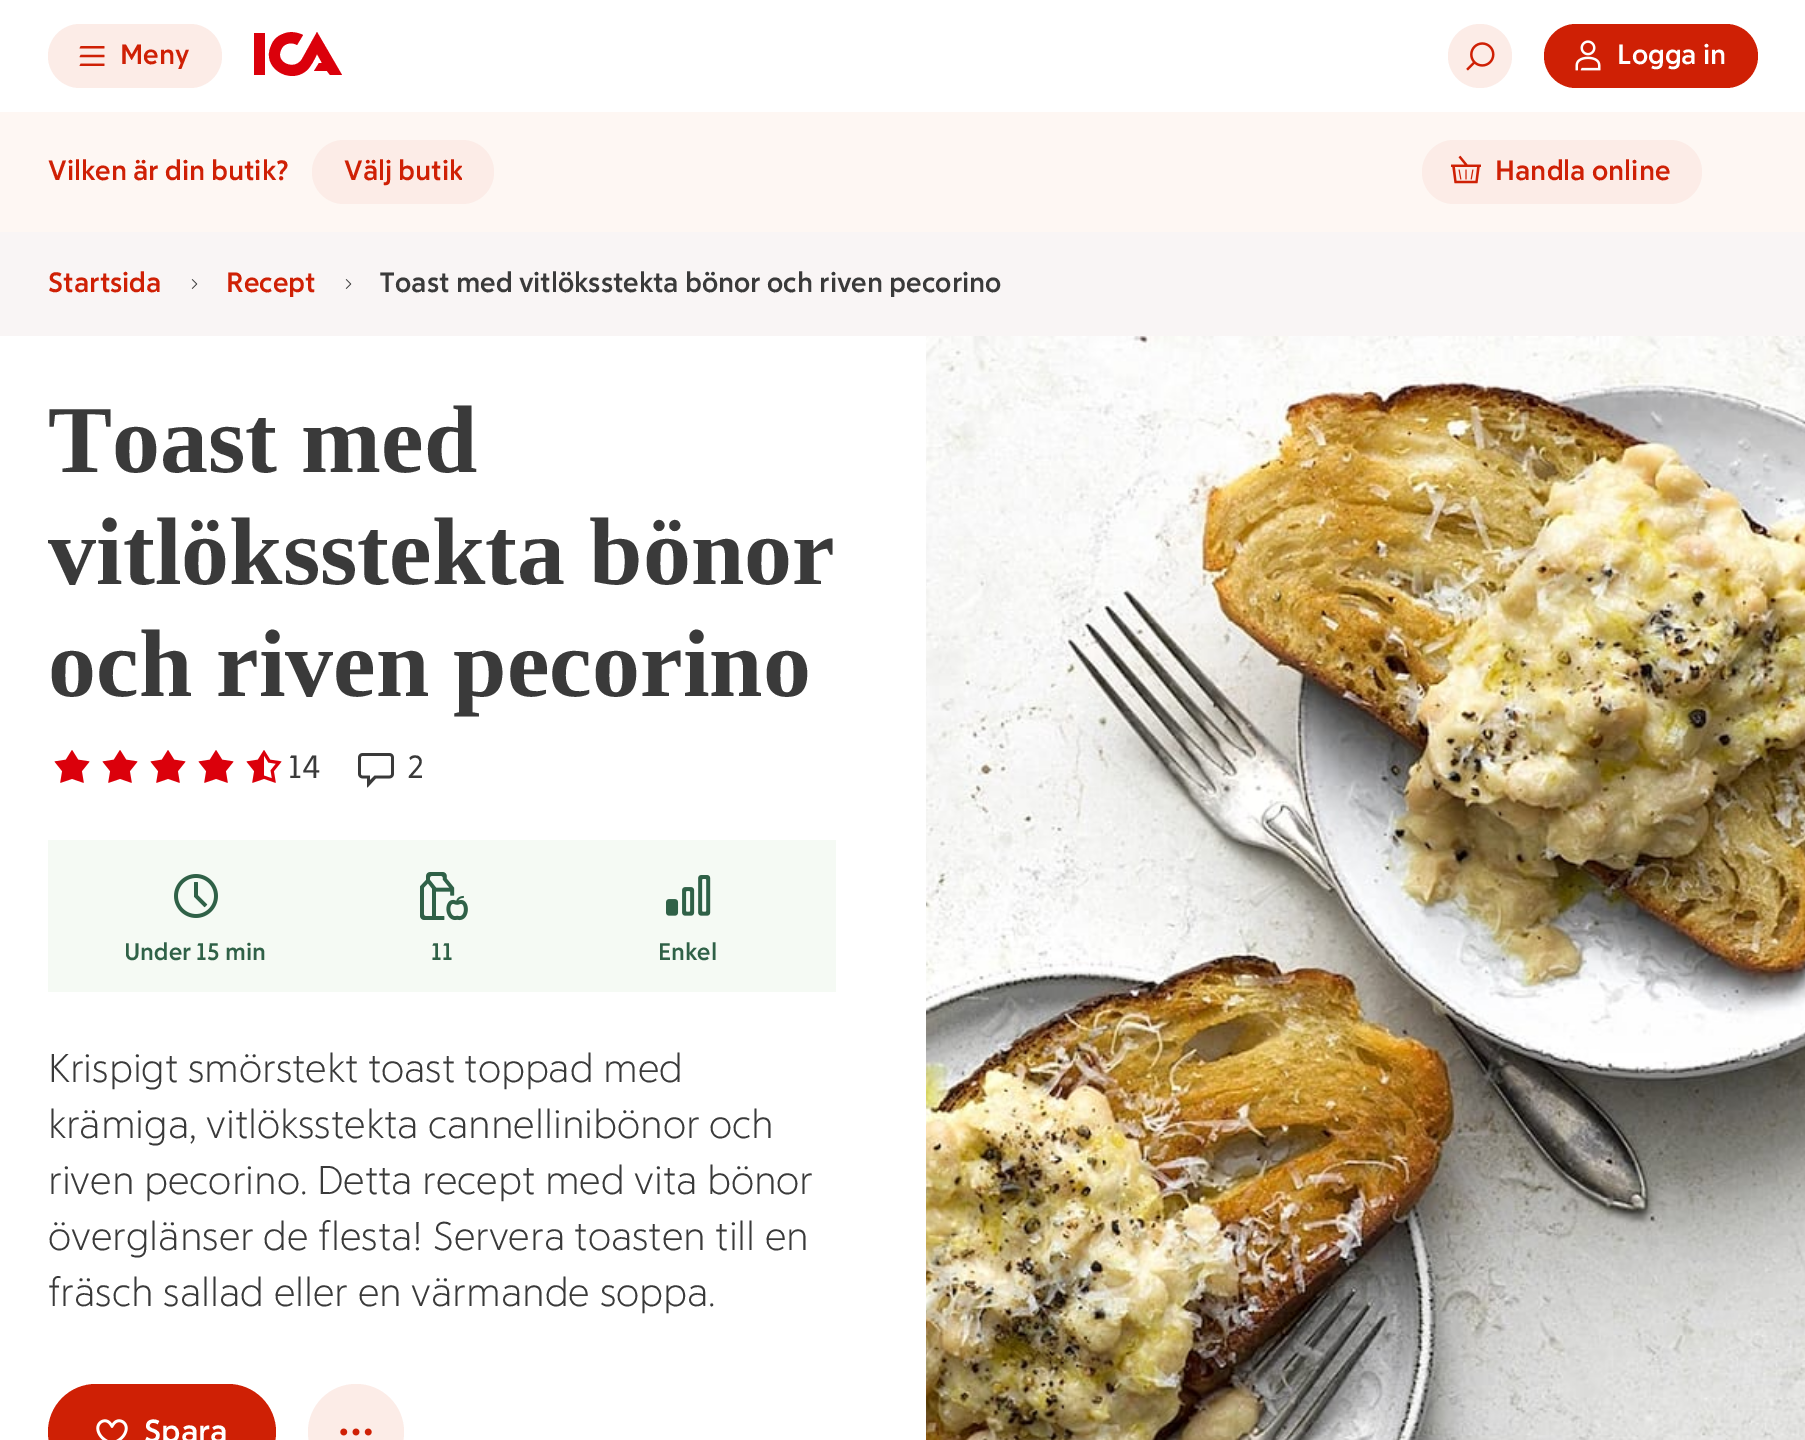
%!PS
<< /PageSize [1805 1440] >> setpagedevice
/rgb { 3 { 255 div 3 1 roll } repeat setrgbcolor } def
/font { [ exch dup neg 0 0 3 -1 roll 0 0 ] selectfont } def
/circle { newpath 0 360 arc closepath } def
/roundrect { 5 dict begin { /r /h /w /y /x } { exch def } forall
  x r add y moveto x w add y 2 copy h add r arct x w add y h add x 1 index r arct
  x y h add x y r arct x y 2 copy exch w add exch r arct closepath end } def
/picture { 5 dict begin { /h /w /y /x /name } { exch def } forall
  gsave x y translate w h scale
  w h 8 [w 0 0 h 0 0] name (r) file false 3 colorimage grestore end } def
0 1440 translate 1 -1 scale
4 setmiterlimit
249 245 245 rgb
0 0 1805 1440 rectfill
255 255 255 rgb
0 0 1805 112 rectfill
252 236 231 rgb
48 24 174 64 32 roundrect fill
(img/1.rgb) 79 46 26 20 picture
219 0 11 rgb
317 32 moveto 342 75 lineto 330 75 lineto 327 71 lineto 314 71 lineto 319 63 lineto 322 63 lineto 317 54 lineto 314 60 311 67 306 71 curveto 289 85 261 67 271 46 curveto 273 40 277 36 283 34 curveto 289 31 297 32 303 35 curveto 297 45 lineto 294 43 290 43 287 44 curveto 284 45 282 47 281 50 curveto 275 63 295 71 302 59 curveto closepath 254 75 moveto 254 33 lineto 265 33 lineto 265 75 lineto closepath eofill
252 236 231 rgb
1480 56 32 circle fill
(img/2.rgb) 1466 42 29 29 picture
207 32 5 rgb
1544 24 214 64 32 roundrect fill
(img/3.rgb) 1575 40 26 31 picture
254 247 243 rgb
0 112 1805 120 rectfill
252 236 231 rgb
312 140 182 64 32 roundrect fill
1422 140 280 64 32 roundrect fill
(img/4.rgb) 1451 155 30 29 picture
(img/5.rgb) 191 279 7 10 picture
(img/5.rgb) 345 279 7 10 picture
255 255 255 rgb
0 336 926 1104 rectfill
(img/6.rgb) 54 750 36 33 picture
(img/6.rgb) 102 750 36 33 picture
(img/6.rgb) 150 750 36 33 picture
(img/6.rgb) 198 750 36 33 picture
(img/7.rgb) 246 750 36 33 picture
(img/8.rgb) 358 753 36 35 picture
245 250 244 rgb
48 840 788 152 rectfill
(img/9.rgb) 174 874 44 44 picture
(img/10.rgb) 420 872 48 49 picture
(img/11.rgb) 666 875 45 41 picture
207 32 5 rgb
48 1384 228 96 48 roundrect fill
(img/12.rgb) 96 1419 32 21 picture
252 236 231 rgb
356 1432 48 circle fill
(img/13.rgb) 340 1428 32 8 picture
(img/14.rgb) 926 336 879 1104 picture
/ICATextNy-Bold 28 font
207 32 5 rgb
120 64 moveto (Meny) show
255 255 255 rgb
1617 64 moveto (Logga in) show
207 32 5 rgb
48 180 moveto (Vilken är din butik?) show
gsave
344 152 118 40 rectclip
344 180 moveto (Välj butik) show
grestore
[
  [(Handla online) 1495 180]
  [(Startsida) 48 292]
  [(Recept) 226 292]
] { aload pop moveto show } forall
58 58 58 rgb
379 292 moveto (Toast med vitlöksstekta bönor och riven pecorino) show
/LiberationSerif-Bold 96 font
[
  [(Toast med) 48 472]
  [(vitlöksstekta bönor) 48 584]
  [(och riven pecorino) 48 696]
] { aload pop moveto show } forall
/ICATextNy-Regular 32 font
288 778 moveto (14) show
408 778 moveto (2) show
/ICATextNy-Bold 24 font
47 97 71 rgb
[
  [(Under 15 min) 124 960]
  [(11) 431 960]
  [(Enkel) 658 960]
] { aload pop moveto show } forall
/ICATextNy-Light 40 font
58 58 58 rgb
[
  [(Krispigt smörstekt toast toppad med) 48 1082]
  [(krämiga, vitlöksstekta cannellinibönor och) 48 1138]
  [(riven pecorino. Detta recept med vita bönor) 48 1194]
  [(överglänser de flesta! Servera toasten till en) 48 1250]
  [(fräsch sallad eller en värmande soppa.) 48 1306]
] { aload pop moveto show } forall
/ICATextNy-Bold 32 font
255 255 255 rgb
144 1442 moveto (Spara) show
showpage
